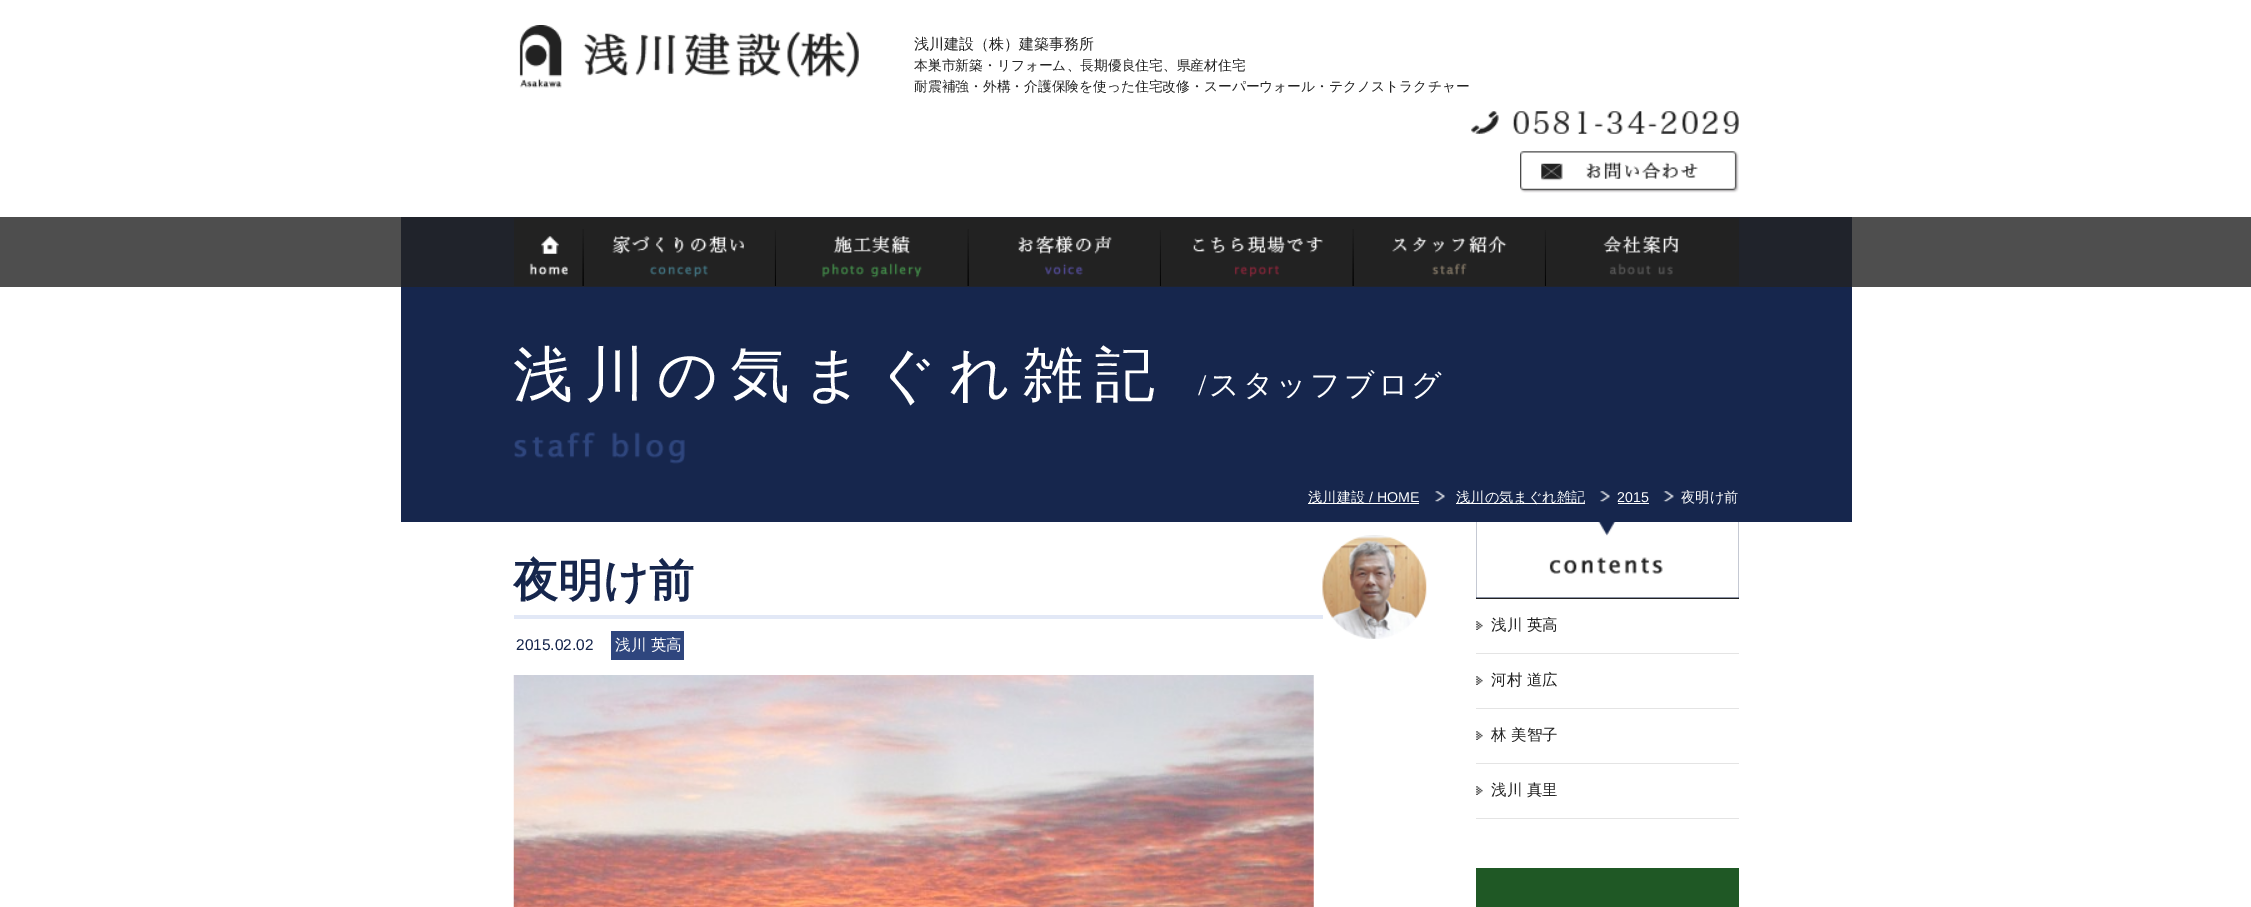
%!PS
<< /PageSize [2251 907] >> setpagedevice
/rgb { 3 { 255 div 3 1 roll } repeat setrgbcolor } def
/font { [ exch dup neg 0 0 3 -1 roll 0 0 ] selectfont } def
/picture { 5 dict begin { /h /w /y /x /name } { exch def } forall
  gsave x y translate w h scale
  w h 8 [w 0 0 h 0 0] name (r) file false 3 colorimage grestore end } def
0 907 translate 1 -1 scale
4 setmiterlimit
255 255 255 rgb
0 0 2251 907 rectfill
78 78 78 rgb
0 217 2251 70 rectfill
(img/1.rgb) 519 25 340 63 picture
(img/2.rgb) 1471 111 268 23 picture
(img/3.rgb) 1520 151 219 42 picture
32 35 43 rgb
401 217 1451 70 rectfill
34 34 34 rgb
514 218 1225 68 rectfill
(img/4.rgb) 529 229 55 57 picture
(img/5.rgb) 612 230 164 56 picture
(img/6.rgb) 822 229 147 57 picture
(img/7.rgb) 1018 230 143 56 picture
(img/8.rgb) 1193 229 161 57 picture
(img/9.rgb) 1392 230 154 56 picture
(img/10.rgb) 1603 236 76 39 picture
22 38 77 rgb
401 287 1451 235 rectfill
(img/11.rgb) 514 432 171 32 picture
255 255 255 rgb
1308 503 111 1 rectfill
(img/12.rgb) 1435 491 10 11 picture
1456 503 129 1 rectfill
(img/12.rgb) 1600 491 10 11 picture
1618 503 31 1 rectfill
(img/13.rgb) 1663 491 11 11 picture
226 232 246 rgb
514 615 809 4 rectfill
(img/14.rgb) 1322 535 105 104 picture
47 70 126 rgb
611 631 73 29 rectfill
(img/15.rgb) 513 675 801 232 picture
22 38 77 rgb
1476 522 263 76 rectfill
34 34 34 rgb
1476 598 263 1 rectfill
(img/16.rgb) 1476 522 263 76 picture
228 228 228 rgb
1476 653 263 1 rectfill
(img/17.rgb) 1476 621 7 9 picture
1476 708 263 1 rectfill
(img/17.rgb) 1476 676 7 9 picture
1476 763 263 1 rectfill
(img/17.rgb) 1476 731 7 9 picture
1476 818 263 1 rectfill
(img/17.rgb) 1476 786 7 9 picture
31 88 37 rgb
1476 868 263 39 rectfill
/WenQuanYiZenHei-Medium 15 font
34 34 34 rgb
914 49 moveto (浅川建設（株）建築事務所) show
/WenQuanYiZenHei-Medium 13.75 font
914 70 moveto (本巣市新築・リフォーム、長期優良住宅、県産材住宅) show
914 91 moveto (耐震補強・外構・介護保険を使った住宅改修・スーパーウォール・テクノストラクチャー) show
/WenQuanYiZenHei-Medium 60 font
255 255 255 rgb
513 395 moveto 12 0 (浅川の気まぐれ雑記) ashow
/LiberationSerif-Regular 30 font
1198 395 moveto 3 0 (/) ashow
/WenQuanYiZenHei-Medium 30 font
1209 395 moveto 3 0 (スタッフブログ) ashow
/WenQuanYiZenHei-Medium 14.25 font
1308 502 moveto (浅川建設) show
/LiberationSans-Regular 14.25 font
1369 502 moveto (/ HOME) show
/WenQuanYiZenHei-Medium 14.25 font
1456 502 moveto (浅川の気まぐれ雑記) show
/LiberationSans-Regular 14.25 font
1617 502 moveto (2015) show
/WenQuanYiZenHei-Medium 14.25 font
1681 502 moveto (夜明け前) show
/WenQuanYiZenHei-Bold 45 font
22 38 77 rgb
513 596 moveto (夜明け前) show
/LiberationSans-Regular 15.5 font
516 650 moveto (2015.02.02) show
/WenQuanYiZenHei-Medium 15.5 font
255 255 255 rgb
615 650 moveto (浅川 英高) show
34 34 34 rgb
[
  [(浅川 英高) 1491 630]
  [(河村 道広) 1491 685]
  [(林 美智子) 1491 740]
  [(浅川 真里) 1491 795]
] { aload pop moveto show } forall
showpage
